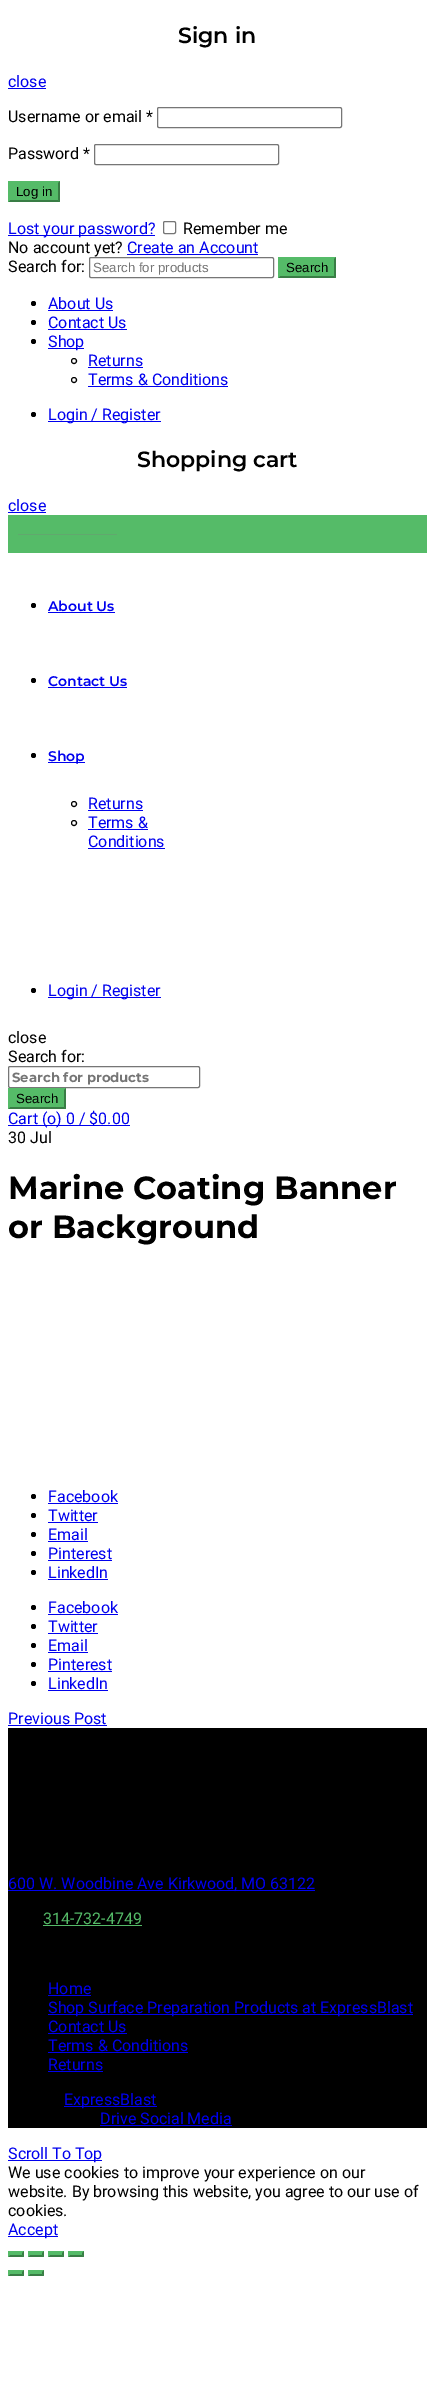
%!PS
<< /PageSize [435 2405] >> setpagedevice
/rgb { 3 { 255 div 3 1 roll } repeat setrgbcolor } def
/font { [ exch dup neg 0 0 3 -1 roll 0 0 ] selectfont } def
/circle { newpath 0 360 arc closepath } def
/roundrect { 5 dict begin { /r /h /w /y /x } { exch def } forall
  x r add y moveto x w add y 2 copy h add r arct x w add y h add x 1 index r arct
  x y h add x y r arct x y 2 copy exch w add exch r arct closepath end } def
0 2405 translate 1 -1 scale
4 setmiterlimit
255 255 255 rgb
0 0 435 2405 rectfill
0 0 238 rgb
8 88 38 1 rectfill
118 118 118 rgb
157.5 107.5 184 20 1.5 roundrect stroke
94.5 144.5 184 20 1.5 roundrect stroke
85 187 104 rgb
8 181 52 21 rectfill
57 125 69 rgb
60 181 moveto 60 202 lineto 58 200 lineto 58 183 lineto closepath fill
60 202 moveto 8 202 lineto 10 200 lineto 58 200 lineto closepath fill
85 187 104 rgb
8 202 moveto 8 181 lineto 10 183 lineto 10 200 lineto closepath fill
0 0 238 rgb
8 235 147 1 rectfill
118 118 118 rgb
163.5 221.5 12 12 1.5 roundrect stroke
0 0 238 rgb
127 254 131 1 rectfill
118 118 118 rgb
89.5 257.5 184 20 1.5 roundrect stroke
85 187 104 rgb
278 257 58 21 rectfill
57 125 69 rgb
336 257 moveto 336 278 lineto 334 276 lineto 334 259 lineto closepath fill
336 278 moveto 278 278 lineto 280 276 lineto 334 276 lineto closepath fill
85 187 104 rgb
278 278 moveto 278 257 lineto 280 259 lineto 280 276 lineto closepath fill
0 0 0 rgb
33.5 303.5 2.5 circle fill
0 0 238 rgb
48 310 65 1 rectfill
0 0 0 rgb
33.5 322.5 2.5 circle fill
0 0 238 rgb
48 329 79 1 rectfill
0 0 0 rgb
33.5 341.5 2.5 circle fill
0 0 238 rgb
48 348 36 1 rectfill
0 0 0 rgb
74 361 2.5 circle stroke
0 0 238 rgb
88 367 55 1 rectfill
0 0 0 rgb
74 380 2.5 circle stroke
0 0 238 rgb
88 386 140 1 rectfill
0 0 0 rgb
33.5 414.5 2.5 circle fill
[
  [48 421 113 1 0 0 238]
  [8 512 38 1 0 0 238]
  [8 515 419 38 85 187 104]
  [18 534 99 1 97 168 110]
] { aload pop rgb rectfill } forall
0 0 0 rgb
33.5 605.5 2.5 circle fill
0 0 238 rgb
48 612 67 1 rectfill
0 0 0 rgb
33.5 680.5 2.5 circle fill
0 0 238 rgb
48 687 79 1 rectfill
0 0 0 rgb
33.5 755.5 2.5 circle fill
0 0 238 rgb
48 762 37 1 rectfill
0 0 0 rgb
74 804 2.5 circle stroke
0 0 238 rgb
88 810 55 1 rectfill
0 0 0 rgb
74 823 2.5 circle stroke
0 0 238 rgb
88 829 60 1 rectfill
88 848 77 1 rectfill
0 0 0 rgb
33.5 990.5 2.5 circle fill
0 0 238 rgb
48 997 113 1 rectfill
118 118 118 rgb
8.5 1066.5 191 21 1.5 roundrect stroke
85 187 104 rgb
8 1088 58 21 rectfill
57 125 69 rgb
66 1088 moveto 66 1109 lineto 64 1107 lineto 64 1090 lineto closepath fill
66 1109 moveto 8 1109 lineto 10 1107 lineto 64 1107 lineto closepath fill
85 187 104 rgb
8 1109 moveto 8 1088 lineto 10 1090 lineto 10 1107 lineto closepath fill
0 0 238 rgb
8 1125 122 1 rectfill
0 0 0 rgb
33.5 1496.5 2.5 circle fill
0 0 238 rgb
48 1503 70 1 rectfill
0 0 0 rgb
33.5 1515.5 2.5 circle fill
0 0 238 rgb
48 1522 50 1 rectfill
0 0 0 rgb
33.5 1534.5 2.5 circle fill
0 0 238 rgb
48 1541 40 1 rectfill
0 0 0 rgb
33.5 1553.5 2.5 circle fill
0 0 238 rgb
48 1560 64 1 rectfill
0 0 0 rgb
33.5 1572.5 2.5 circle fill
0 0 238 rgb
48 1579 60 1 rectfill
0 0 0 rgb
33.5 1607.5 2.5 circle fill
0 0 238 rgb
48 1614 70 1 rectfill
0 0 0 rgb
33.5 1626.5 2.5 circle fill
0 0 238 rgb
48 1633 50 1 rectfill
0 0 0 rgb
33.5 1645.5 2.5 circle fill
0 0 238 rgb
48 1652 40 1 rectfill
0 0 0 rgb
33.5 1664.5 2.5 circle fill
0 0 238 rgb
48 1671 64 1 rectfill
0 0 0 rgb
33.5 1683.5 2.5 circle fill
[
  [48 1690 60 1 0 0 238]
  [8 1725 99 1 0 0 238]
  [8 1728 419 400 0 0 0]
  [8 1890 307 1 0 0 238]
  [43 1925 99 1 85 187 104]
  [48 1995 43 1 0 0 238]
  [48 2014 365 1 0 0 238]
  [48 2033 79 1 0 0 238]
  [48 2052 140 1 0 0 238]
  [48 2071 55 1 0 0 238]
  [64 2106 93 1 0 0 238]
  [100 2125 132 1 0 0 238]
  [8 2160 94 1 0 0 238]
  [8 2236 50 1 0 0 238]
  [8 2251 16 6 85 187 104]
] { aload pop rgb rectfill } forall
57 125 69 rgb
24 2251 moveto 24 2257 lineto 22 2255 lineto 22 2253 lineto closepath fill
24 2257 moveto 8 2257 lineto 10 2255 lineto 22 2255 lineto closepath fill
85 187 104 rgb
8 2257 moveto 8 2251 lineto 10 2253 lineto 10 2255 lineto closepath fill
28 2251 16 6 rectfill
57 125 69 rgb
44 2251 moveto 44 2257 lineto 42 2255 lineto 42 2253 lineto closepath fill
44 2257 moveto 28 2257 lineto 30 2255 lineto 42 2255 lineto closepath fill
85 187 104 rgb
28 2257 moveto 28 2251 lineto 30 2253 lineto 30 2255 lineto closepath fill
48 2251 16 6 rectfill
57 125 69 rgb
64 2251 moveto 64 2257 lineto 62 2255 lineto 62 2253 lineto closepath fill
64 2257 moveto 48 2257 lineto 50 2255 lineto 62 2255 lineto closepath fill
85 187 104 rgb
48 2257 moveto 48 2251 lineto 50 2253 lineto 50 2255 lineto closepath fill
68 2251 16 6 rectfill
57 125 69 rgb
84 2251 moveto 84 2257 lineto 82 2255 lineto 82 2253 lineto closepath fill
84 2257 moveto 68 2257 lineto 70 2255 lineto 82 2255 lineto closepath fill
85 187 104 rgb
68 2257 moveto 68 2251 lineto 70 2253 lineto 70 2255 lineto closepath fill
8 2270 16 6 rectfill
57 125 69 rgb
24 2270 moveto 24 2276 lineto 22 2274 lineto 22 2272 lineto closepath fill
24 2276 moveto 8 2276 lineto 10 2274 lineto 22 2274 lineto closepath fill
85 187 104 rgb
8 2276 moveto 8 2270 lineto 10 2272 lineto 10 2274 lineto closepath fill
28 2270 16 6 rectfill
57 125 69 rgb
44 2270 moveto 44 2276 lineto 42 2274 lineto 42 2272 lineto closepath fill
44 2276 moveto 28 2276 lineto 30 2274 lineto 42 2274 lineto closepath fill
85 187 104 rgb
28 2276 moveto 28 2270 lineto 30 2272 lineto 30 2274 lineto closepath fill
/Montserrat-SemiBold 22 font
0 0 0 rgb
178 43 moveto (Sign in) show
/Roboto-Regular 16 font
0 0 238 rgb
8 87 moveto (close) show
0 0 0 rgb
8 122 moveto (Username or email *) show
8 159 moveto (Password *) show
/LiberationSans-Regular 13.25 font
16 196 moveto (Log in) show
/Roboto-Regular 16 font
0 0 238 rgb
8 234 moveto (Lost your password?) show
0 0 0 rgb
183 234 moveto (Remember me) show
8 253 moveto (No account yet?) show
0 0 238 rgb
127 253 moveto (Create an Account) show
0 0 0 rgb
8 272 moveto (Search for:) show
/LiberationSans-Regular 13.25 font
117 117 117 rgb
93 272 moveto (Search for products) show
0 0 0 rgb
286 272 moveto (Search) show
/Roboto-Regular 16 font
0 0 238 rgb
[
  [(About Us) 48 309]
  [(Contact Us) 48 328]
  [(Shop) 48 347]
  [(Returns) 88 366]
  [(Terms & Conditions) 88 385]
  [(Login / Register) 48 420]
] { aload pop moveto show } forall
/Montserrat-SemiBold 22 font
0 0 0 rgb
137 467 moveto (Shopping cart) show
/Roboto-Regular 16 font
0 0 238 rgb
8 511 moveto (close) show
/Montserrat-SemiBold 14 font
[
  [(About Us) 48 611]
  [(Contact Us) 48 686]
  [(Shop) 48 761]
] { aload pop moveto show } forall
/Roboto-Regular 16 font
[
  [(Returns) 88 809]
  [(Terms &) 88 828]
  [(Conditions) 88 847]
  [(Login / Register) 48 996]
] { aload pop moveto show } forall
0 0 0 rgb
8 1043 moveto (close) show
8 1062 moveto (Search for:) show
/Montserrat-Bold 13.25 font
117 117 117 rgb
12 1082 moveto (Search for products) show
/LiberationSans-Regular 13.25 font
0 0 0 rgb
16 1103 moveto (Search) show
/Roboto-Regular 16 font
0 0 238 rgb
8 1124 moveto (Cart \(o\) 0 / $0.00) show
0 0 0 rgb
8 1143 moveto (30 Jul) show
/Montserrat-Bold 32 font
8 1199 moveto (Marine Coating Banner) show
8 1238 moveto (or Background) show
/Roboto-Regular 16 font
0 0 238 rgb
[
  [(Facebook) 48 1502]
  [(Twitter) 48 1521]
  [(Email) 48 1540]
  [(Pinterest) 48 1559]
  [(LinkedIn) 48 1578]
  [(Facebook) 48 1613]
  [(Twitter) 48 1632]
  [(Email) 48 1651]
  [(Pinterest) 48 1670]
  [(LinkedIn) 48 1689]
  [(Previous Post) 8 1724]
  [(600 W. Woodbine Ave Kirkwood, MO 63122) 8 1889]
] { aload pop moveto show } forall
85 187 104 rgb
43 1924 moveto (314-732-4749) show
0 0 238 rgb
[
  [(Home) 48 1994]
  [(Shop Surface Preparation Products at ExpressBlast) 48 2013]
  [(Contact Us) 48 2032]
  [(Terms & Conditions) 48 2051]
  [(Returns) 48 2070]
  [(ExpressBlast) 64 2105]
  [(Drive Social Media) 100 2124]
  [(Scroll To Top) 8 2159]
] { aload pop moveto show } forall
0 0 0 rgb
[
  [(We use cookies to improve your experience on our) 8 2178]
  [(website. By browsing this website, you agree to our use of) 8 2197]
  [(cookies.) 8 2216]
] { aload pop moveto show } forall
0 0 238 rgb
8 2235 moveto (Accept) show
showpage
